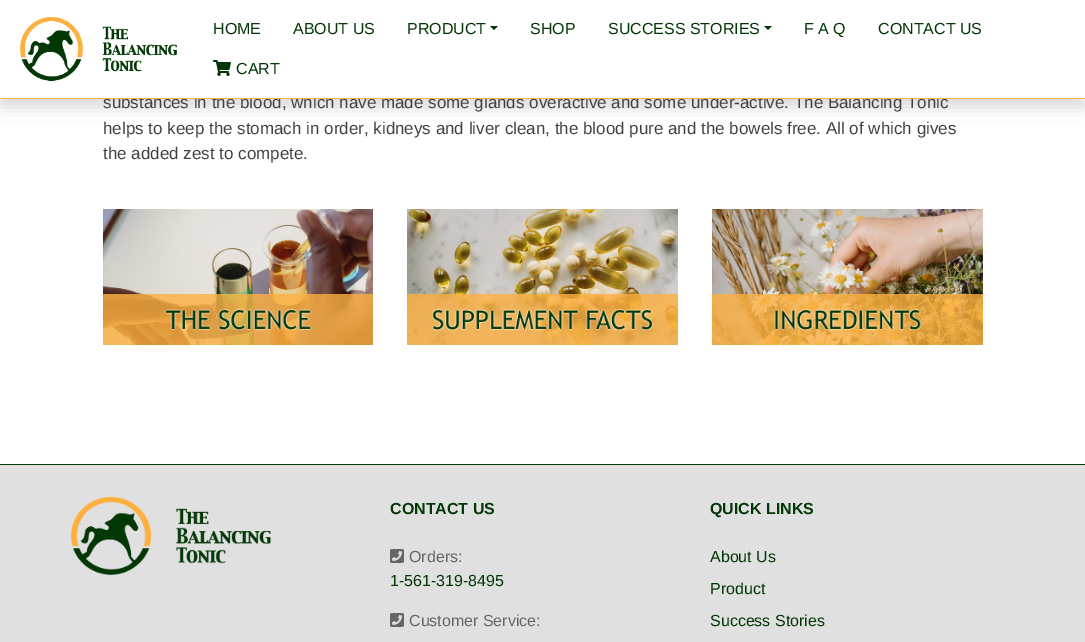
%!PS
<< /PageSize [1085 642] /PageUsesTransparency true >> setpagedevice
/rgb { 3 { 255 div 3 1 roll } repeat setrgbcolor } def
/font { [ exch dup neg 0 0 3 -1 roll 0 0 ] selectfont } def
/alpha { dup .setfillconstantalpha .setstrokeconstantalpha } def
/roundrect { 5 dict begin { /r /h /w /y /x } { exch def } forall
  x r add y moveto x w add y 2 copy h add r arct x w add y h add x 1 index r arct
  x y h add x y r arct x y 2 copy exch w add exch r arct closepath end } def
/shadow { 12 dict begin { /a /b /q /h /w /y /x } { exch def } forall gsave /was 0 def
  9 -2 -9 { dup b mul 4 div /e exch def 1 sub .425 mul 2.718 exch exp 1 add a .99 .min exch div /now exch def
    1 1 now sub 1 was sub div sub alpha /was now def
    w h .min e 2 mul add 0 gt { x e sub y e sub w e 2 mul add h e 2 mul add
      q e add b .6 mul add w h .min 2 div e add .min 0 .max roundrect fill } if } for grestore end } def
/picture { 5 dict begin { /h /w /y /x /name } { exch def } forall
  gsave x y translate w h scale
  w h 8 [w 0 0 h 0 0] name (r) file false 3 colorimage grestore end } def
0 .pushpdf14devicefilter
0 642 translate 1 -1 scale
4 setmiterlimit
255 255 255 rgb
0 0 1085 642 rectfill
0 0 0 rgb
0 8 1085 99 0 8 0.15 shadow
(img/3.rgb) 103 209 270 136 picture
(img/4.rgb) 407 209 271 136 picture
(img/5.rgb) 712 209 271 136 picture
224 224 224 rgb
0 465 1085 177 rectfill
3 55 5 rgb
0 464 1085 1 rectfill
(img/6.rgb) 71 497 200 78 picture
(img/7.rgb) 390 549 14 14 picture
(img/7.rgb) 390 613 14 14 picture
/LiberationSans-Regular 17 font
64 64 64 rgb
103 108 moveto (substances in the blood, which have made some glands overactive and some under-active. The Balancing Tonic) show
255 255 255 rgb
0 0 1085 98 rectfill
3 55 5 rgb
764 26 moveto 772 26 lineto 768 30 lineto closepath fill
/LiberationSans-Regular 16 font
608 34 moveto (SUCCESS STORIES) show
490 26 moveto 498 26 lineto 494 30 lineto closepath fill
407 34 moveto (PRODUCT) show
(img/2.rgb) 213 60 18 16 picture
[
  [(CART) 236 74]
  [(CONTACT US) 878 34]
  [(F A Q) 804 34]
  [(SHOP) 530 34]
  [(ABOUT US) 293 34]
  [(HOME) 213 34]
] { aload pop moveto show } forall
(img/1.rgb) 19 16 158 66 picture
252 176 64 rgb
0 98 1085 1 rectfill
/LiberationSans-Regular 17 font
64 64 64 rgb
103 134 moveto (helps to keep the stomach in order, kidneys and liver clean, the blood pure and the bowels free. All of which gives) show
103 159 moveto (the added zest to compete.) show
/LiberationSans-Bold 16 font
3 55 5 rgb
390 514 moveto (CONTACT US) show
/LiberationSans-Regular 16 font
102 102 102 rgb
409 562 moveto (Orders:) show
3 55 5 rgb
390 586 moveto (1-561-319-8495) show
102 102 102 rgb
409 626 moveto (Customer Service:) show
/LiberationSans-Bold 16 font
3 55 5 rgb
710 514 moveto (QUICK LINKS) show
/LiberationSans-Regular 16 font
[
  [(About Us) 710 562]
  [(Product) 710 594]
  [(Success Stories) 710 626]
] { aload pop moveto show } forall
.poppdf14devicefilter showpage
